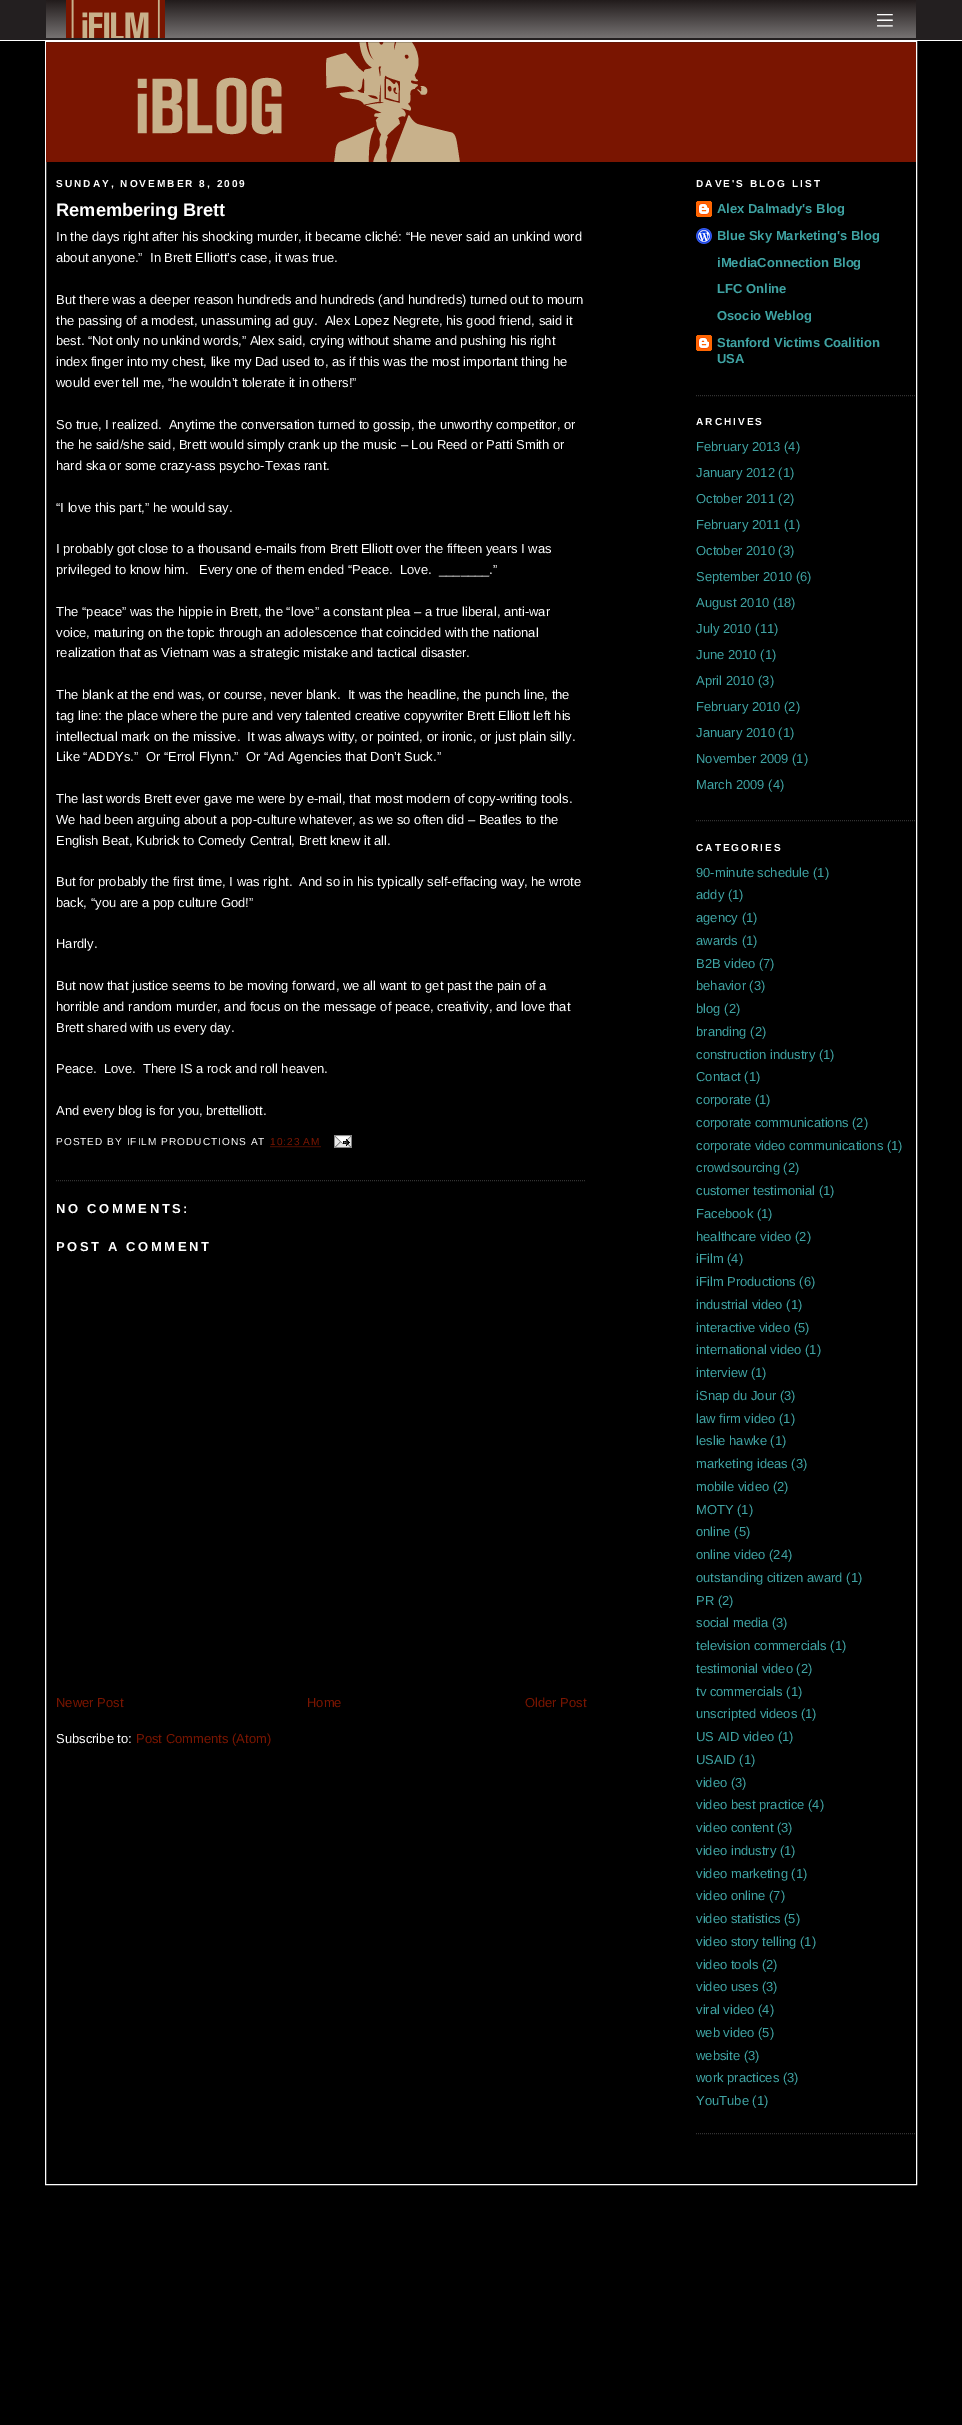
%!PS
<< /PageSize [962 2425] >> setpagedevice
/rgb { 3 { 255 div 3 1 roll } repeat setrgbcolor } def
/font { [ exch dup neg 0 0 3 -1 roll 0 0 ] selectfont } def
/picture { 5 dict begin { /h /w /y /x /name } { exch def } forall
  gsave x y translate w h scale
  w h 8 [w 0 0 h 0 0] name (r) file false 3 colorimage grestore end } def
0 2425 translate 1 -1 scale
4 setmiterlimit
0 0 0 rgb
0 0 962 2425 rectfill
35 31 32 rgb
0 0 962 40 rectfill
255 255 255 rgb
0 40 962 1 rectfill
(img/1.rgb) 46 0 870 38 picture
45.5 41.5 871 2143 rectstroke
(img/2.rgb) 46 42 870 120 picture
51 51 51 rgb
[1 1] 0 setdash
56 1180.5 moveto 586 1180.5 lineto stroke
122 21 1 rgb
270.5 1146.5 moveto 321 1146.5 lineto stroke
(img/3.rgb) 334 1135 18 13 picture
51 51 51 rgb
696 395.5 moveto 916 395.5 lineto stroke
(img/4.rgb) 696 201 16 16 picture
(img/5.rgb) 696 228 16 16 picture
(img/4.rgb) 696 335 16 16 picture
696 820.5 moveto 916 820.5 lineto stroke
696 2133.5 moveto 916 2133.5 lineto stroke
/LiberationSans-Bold 10.1 font
255 255 255 rgb
56 187 moveto 2 0 (SUNDAY, NOVEMBER 8, 2009) ashow
/LiberationSans-Bold 18.25 font
56 216 moveto (Remembering Brett) show
/LiberationSans-Regular 13 font
[
  [(In the days right after his shocking murder, it became cliché: “He never said an unkind word) 56 241]
  [(about anyone.”  In Brett Elliott’s case, it was true.) 56 262]
  [(But there was a deeper reason hundreds and hundreds \(and hundreds\) turned out to mourn) 56 304]
  [(the passing of a modest, unassuming ad guy.  Alex Lopez Negrete, his good friend, said it) 56 325]
  [(best. “Not only no unkind words,” Alex said, crying without shame and pushing his right) 56 345]
  [(index finger into my chest, like my Dad used to, as if this was the most important thing he) 56 366]
  [(would ever tell me, “he wouldn’t tolerate it in others!”) 56 387]
  [(So true, I realized.  Anytime the conversation turned to gossip, the unworthy competitor, or) 56 429]
  [(the he said/she said, Brett would simply crank up the music – Lou Reed or Patti Smith or) 56 449]
  [(hard ska or some crazy-ass psycho-Texas rant.) 56 470]
  [(“I love this part,” he would say.) 56 512]
  [(I probably got close to a thousand e-mails from Brett Elliott over the fifteen years I was) 56 553]
  [(privileged to know him.   Every one of them ended “Peace.  Love.  _______.”) 56 574]
  [(The “peace” was the hippie in Brett, the “love” a constant plea – a true liberal, anti-war) 56 616]
  [(voice, maturing on the topic through an adolescence that coincided with the national) 56 637]
  [(realization that as Vietnam was a strategic mistake and tactical disaster.) 56 657]
  [(The blank at the end was, or course, never blank.  It was the headline, the punch line, the) 56 699]
  [(tag line: the place where the pure and very talented creative copywriter Brett Elliott left his) 56 720]
  [(intellectual mark on the missive.  It was always witty, or pointed, or ironic, or just plain silly.) 56 741]
  [(Like “ADDYs.”  Or “Errol Flynn.”  Or “Ad Agencies that Don’t Suck.”) 56 761]
  [(The last words Brett ever gave me were by e-mail, that most modern of copy-writing tools.) 56 803]
  [(We had been arguing about a pop-culture whatever, as we so often did – Beatles to the) 56 824]
  [(English Beat, Kubrick to Comedy Central, Brett knew it all.) 56 845]
  [(But for probably the first time, I was right.  And so in his typically self-effacing way, he wrote) 56 886]
  [(back, “you are a pop culture God!”) 56 907]
  [(Hardly.) 56 948]
  [(But now that justice seems to be moving forward, we all want to get past the pain of a) 56 990]
  [(horrible and random murder, and focus on the message of peace, creativity, and love that) 56 1011]
  [(Brett shared with us every day.) 56 1032]
  [(Peace.  Love.  There IS a rock and roll heaven.) 56 1073]
  [(And every blog is for you, brettelliott.) 56 1115]
] { aload pop moveto show } forall
/LiberationSans-Regular 10.1 font
56 1145 moveto 1 0 (POSTED BY IFILM PRODUCTIONS AT) ashow
122 21 1 rgb
270 1145 moveto 1 0 (10:23 AM) ashow
/LiberationSans-Bold 13 font
255 255 255 rgb
56 1213 moveto 2.6 0 (NO COMMENTS:) ashow
56 1251 moveto 2.6 0 (POST A COMMENT) ashow
/LiberationSans-Regular 13 font
122 21 1 rgb
[
  [(Newer Post) 56 1707]
  [(Home) 307 1707]
  [(Older Post) 525 1707]
] { aload pop moveto show } forall
255 255 255 rgb
56 1743 moveto (Subscribe to:) show
122 21 1 rgb
136 1743 moveto (Post Comments \(Atom\)) show
/LiberationSans-Bold 10.1 font
255 255 255 rgb
696 187 moveto 2 0 (DAVE'S BLOG LIST) ashow
/LiberationSans-Bold 13 font
63 163 163 rgb
[
  [(Alex Dalmady's Blog) 717 213]
  [(Blue Sky Marketing's Blog) 717 240]
  [(iMediaConnection Blog) 717 267]
  [(LFC Online) 717 293]
  [(Osocio Weblog) 717 320]
  [(Stanford Victims Coalition) 717 347]
  [(USA) 717 363]
] { aload pop moveto show } forall
/LiberationSans-Bold 10.1 font
255 255 255 rgb
696 425 moveto 2 0 (ARCHIVES) ashow
/LiberationSans-Regular 13 font
63 163 163 rgb
[
  [(February 2013 \(4\)) 696 451]
  [(January 2012 \(1\)) 696 477]
  [(October 2011 \(2\)) 696 503]
  [(February 2011 \(1\)) 696 529]
  [(October 2010 \(3\)) 696 555]
  [(September 2010 \(6\)) 696 581]
  [(August 2010 \(18\)) 696 607]
  [(July 2010 \(11\)) 696 633]
  [(June 2010 \(1\)) 696 659]
  [(April 2010 \(3\)) 696 685]
  [(February 2010 \(2\)) 696 711]
  [(January 2010 \(1\)) 696 737]
  [(November 2009 \(1\)) 696 763]
  [(March 2009 \(4\)) 696 789]
] { aload pop moveto show } forall
/LiberationSans-Bold 10.1 font
255 255 255 rgb
696 851 moveto 2 0 (CATEGORIES) ashow
/LiberationSans-Regular 13 font
63 163 163 rgb
[
  [(90-minute schedule \(1\)) 696 877]
  [(addy \(1\)) 696 899]
  [(agency \(1\)) 696 922]
  [(awards \(1\)) 696 945]
  [(B2B video \(7\)) 696 968]
  [(behavior \(3\)) 696 990]
  [(blog \(2\)) 696 1013]
  [(branding \(2\)) 696 1036]
  [(construction industry \(1\)) 696 1059]
  [(Contact \(1\)) 696 1081]
  [(corporate \(1\)) 696 1104]
  [(corporate communications \(2\)) 696 1127]
  [(corporate video communications \(1\)) 696 1150]
  [(crowdsourcing \(2\)) 696 1172]
  [(customer testimonial \(1\)) 696 1195]
  [(Facebook \(1\)) 696 1218]
  [(healthcare video \(2\)) 696 1241]
  [(iFilm \(4\)) 696 1263]
  [(iFilm Productions \(6\)) 696 1286]
  [(industrial video \(1\)) 696 1309]
  [(interactive video \(5\)) 696 1332]
  [(international video \(1\)) 696 1354]
  [(interview \(1\)) 696 1377]
  [(iSnap du Jour \(3\)) 696 1400]
  [(law firm video \(1\)) 696 1423]
  [(leslie hawke \(1\)) 696 1445]
  [(marketing ideas \(3\)) 696 1468]
  [(mobile video \(2\)) 696 1491]
  [(MOTY \(1\)) 696 1514]
  [(online \(5\)) 696 1536]
  [(online video \(24\)) 696 1559]
  [(outstanding citizen award \(1\)) 696 1582]
  [(PR \(2\)) 696 1605]
  [(social media \(3\)) 696 1627]
  [(television commercials \(1\)) 696 1650]
  [(testimonial video \(2\)) 696 1673]
  [(tv commercials \(1\)) 696 1696]
  [(unscripted videos \(1\)) 696 1718]
  [(US AID video \(1\)) 696 1741]
  [(USAID \(1\)) 696 1764]
  [(video \(3\)) 696 1787]
  [(video best practice \(4\)) 696 1809]
  [(video content \(3\)) 696 1832]
  [(video industry \(1\)) 696 1855]
  [(video marketing \(1\)) 696 1878]
  [(video online \(7\)) 696 1900]
  [(video statistics \(5\)) 696 1923]
  [(video story telling \(1\)) 696 1946]
  [(video tools \(2\)) 696 1969]
  [(video uses \(3\)) 696 1991]
  [(viral video \(4\)) 696 2014]
  [(web video \(5\)) 696 2037]
  [(website \(3\)) 696 2060]
  [(work practices \(3\)) 696 2082]
  [(YouTube \(1\)) 696 2105]
] { aload pop moveto show } forall
showpage
